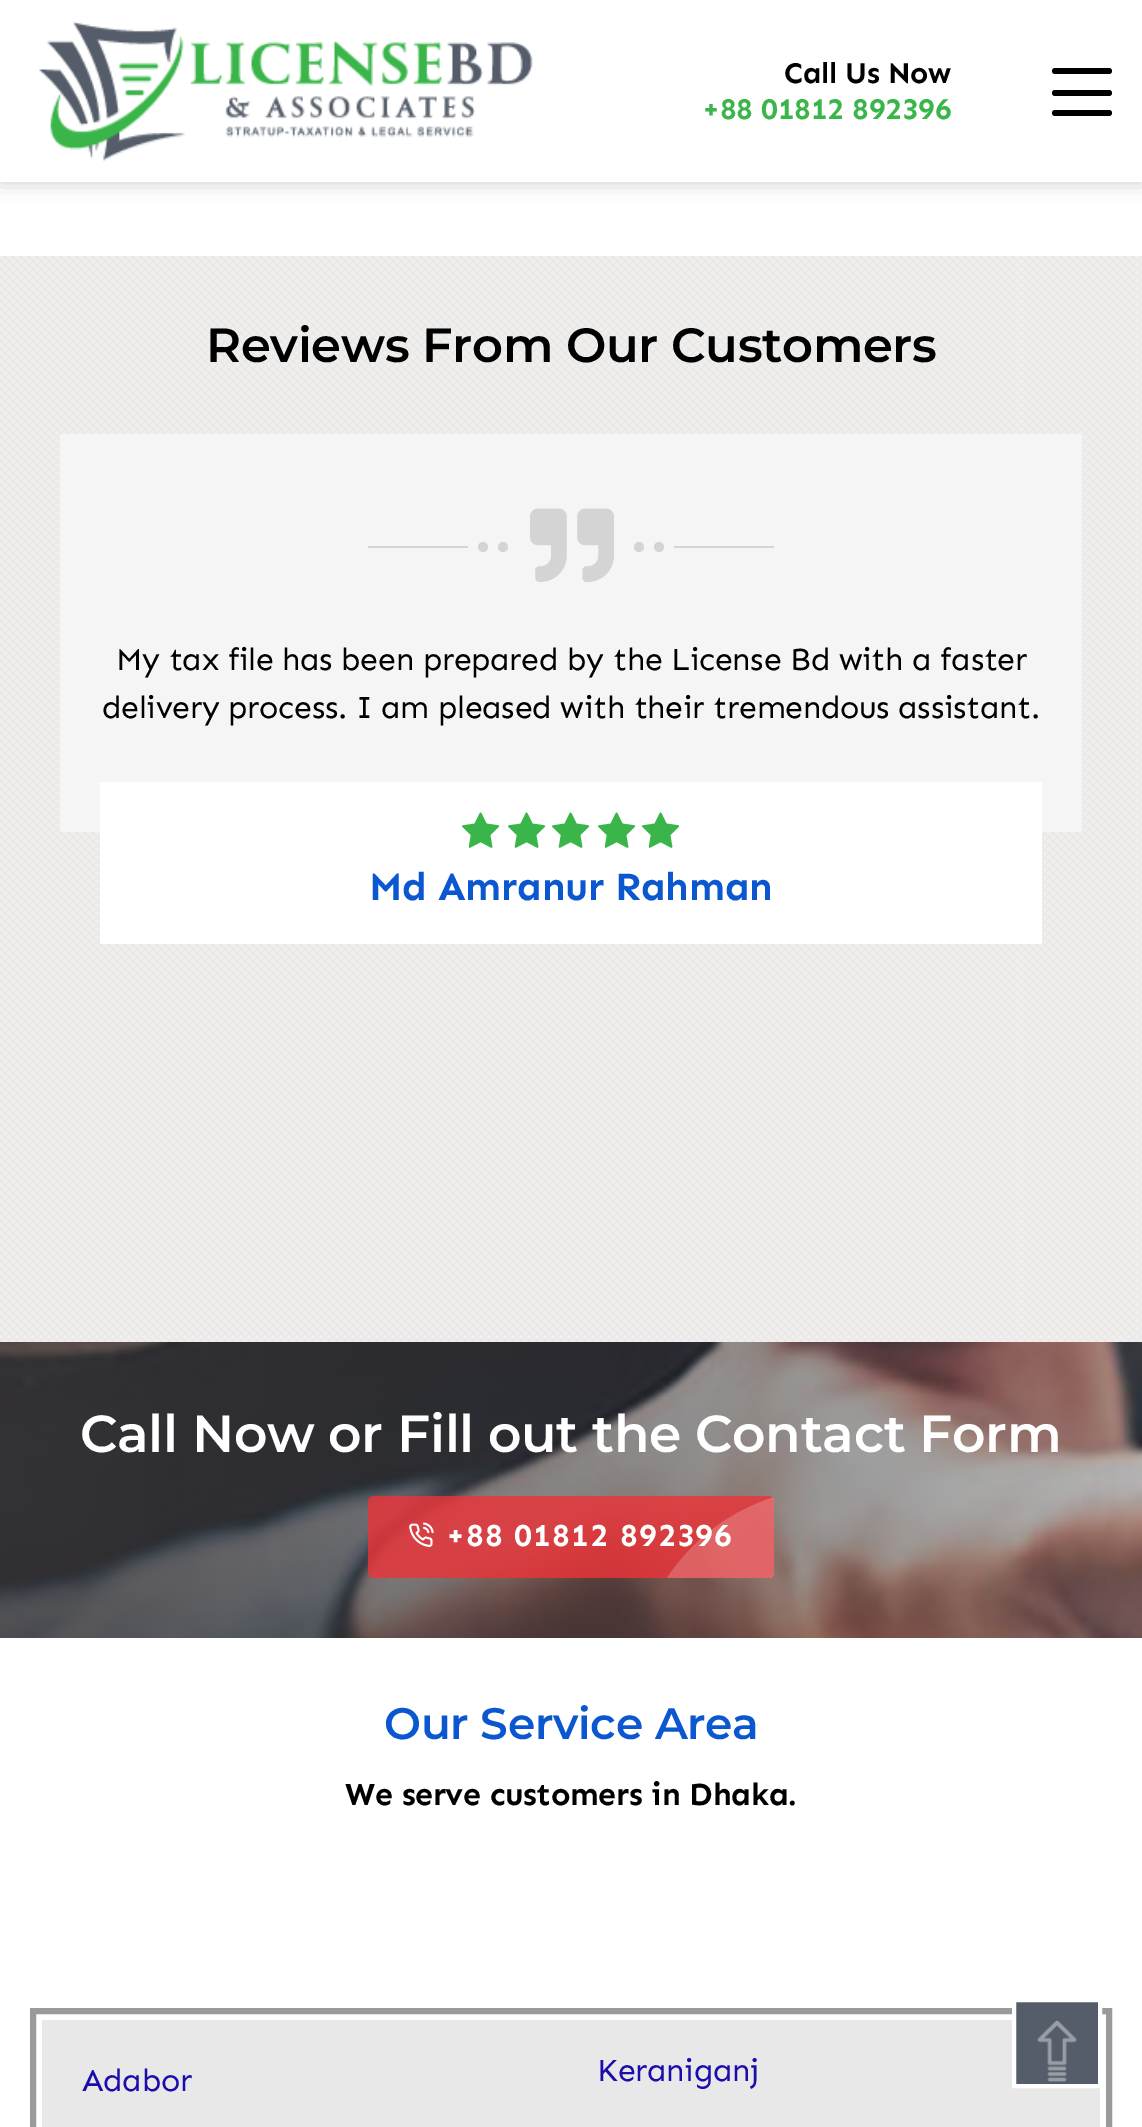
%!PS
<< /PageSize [1142 2127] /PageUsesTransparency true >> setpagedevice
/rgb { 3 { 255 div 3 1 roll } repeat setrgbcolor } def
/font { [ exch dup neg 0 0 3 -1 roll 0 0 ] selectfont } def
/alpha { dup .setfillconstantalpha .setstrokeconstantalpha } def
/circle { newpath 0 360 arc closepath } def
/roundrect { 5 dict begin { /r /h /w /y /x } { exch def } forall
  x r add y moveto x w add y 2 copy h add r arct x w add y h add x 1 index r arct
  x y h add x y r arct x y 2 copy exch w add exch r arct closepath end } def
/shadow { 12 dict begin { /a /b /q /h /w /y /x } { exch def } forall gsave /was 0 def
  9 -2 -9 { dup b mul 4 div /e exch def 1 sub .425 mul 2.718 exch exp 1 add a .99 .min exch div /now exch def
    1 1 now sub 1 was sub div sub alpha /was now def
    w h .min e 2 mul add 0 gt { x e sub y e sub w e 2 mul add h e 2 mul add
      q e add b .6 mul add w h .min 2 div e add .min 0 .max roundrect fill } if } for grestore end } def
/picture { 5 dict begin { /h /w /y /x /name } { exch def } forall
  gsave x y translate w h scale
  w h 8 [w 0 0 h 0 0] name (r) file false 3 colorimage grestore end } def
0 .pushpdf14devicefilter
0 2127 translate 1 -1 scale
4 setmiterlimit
255 255 255 rgb
0 0 1142 2127 rectfill
0 0 0 rgb
0 0 1142 182 0 10 0.2 shadow
255 255 255 rgb
0 0 1142 182 rectfill
(img/1.rgb) 39 21 494 141 picture
0 0 0 rgb
1052 68 60 6 3 roundrect fill
1052 90 60 6 3 roundrect fill
1052 110 60 6 3 roundrect fill
(img/2.rgb) 0 256 1142 1086 picture
245 245 245 rgb
60 434 1022 398 rectfill
212 212 212 rgb
368 546 100 2 rectfill
483 547 5 circle fill
503 547 5 circle fill
(img/3.rgb) 530 508 84 74 picture
639 547 5 circle fill
659 547 5 circle fill
674 546 100 2 rectfill
255 255 255 rgb
100 782 942 162 rectfill
(img/4.rgb) 462 812 38 36 picture
(img/4.rgb) 508 812 38 36 picture
(img/4.rgb) 552 812 38 36 picture
(img/4.rgb) 598 812 38 36 picture
(img/4.rgb) 642 812 38 36 picture
(img/5.rgb) 0 1342 1142 296 picture
0.8 alpha
237 50 55 rgb
368 1496 406 82 6 roundrect fill
1 alpha
(img/6.rgb) 409 1522 25 25 picture
155 154 154 rgb
6 setlinewidth
33 2011 1076 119 rectstroke
232 232 232 rgb
42 2020 1058 107 rectfill
84 93 105 rgb
1014 2000 moveto 1100 2000 lineto 1100 2086 lineto 1014 2086 lineto closepath gsave fill grestore
255 255 255 rgb
4 setlinewidth
stroke
(img/7.rgb) 1037 2020 40 62 picture
/Sen-Bold 30 font
0 0 0 rgb
784 83 moveto -0.32 0 (Call Us Now) ashow
57 181 73 rgb
702 119 moveto -0.32 0 (+88 01812 892396) ashow
/Montserrat-SemiBold 48 font
0 0 0 rgb
206 362 moveto -0.32 0 (Reviews From Our Customers) ashow
/Sen-Regular 32 font
116 670 moveto -0.32 0 (My tax file has been prepared by the License Bd with a faster) ashow
102 718 moveto -0.32 0 (delivery process. I am pleased with their tremendous assistant.) ashow
/Sen-Bold 40 font
11 87 208 rgb
369 900 moveto -0.32 0 (Md Amranur Rahman) ashow
/Montserrat-SemiBold 52 font
255 255 255 rgb
80 1452 moveto -0.32 0 (Call Now or Fill out the Contact Form) ashow
/Sen-Bold 32 font
446 1546 moveto 1 0 (+88 01812 892396) ashow
gsave
368 1496 406 82 6 roundrect clip newpath
0.2 alpha
834 1688 200 circle fill
grestore
/Montserrat-SemiBold 44 font
11 87 208 rgb
384 1739 moveto -0.32 0 (Our Service Area) ashow
/Sen-Bold 32 font
0 0 0 rgb
345 1805 moveto -0.32 0 (We serve customers in Dhaka.) ashow
/Sen-Regular 32 font
26 13 171 rgb
82 2091 moveto -0.32 0 (Adabor) ashow
597 2081 moveto -0.32 0 (Keraniganj) ashow
.poppdf14devicefilter showpage
